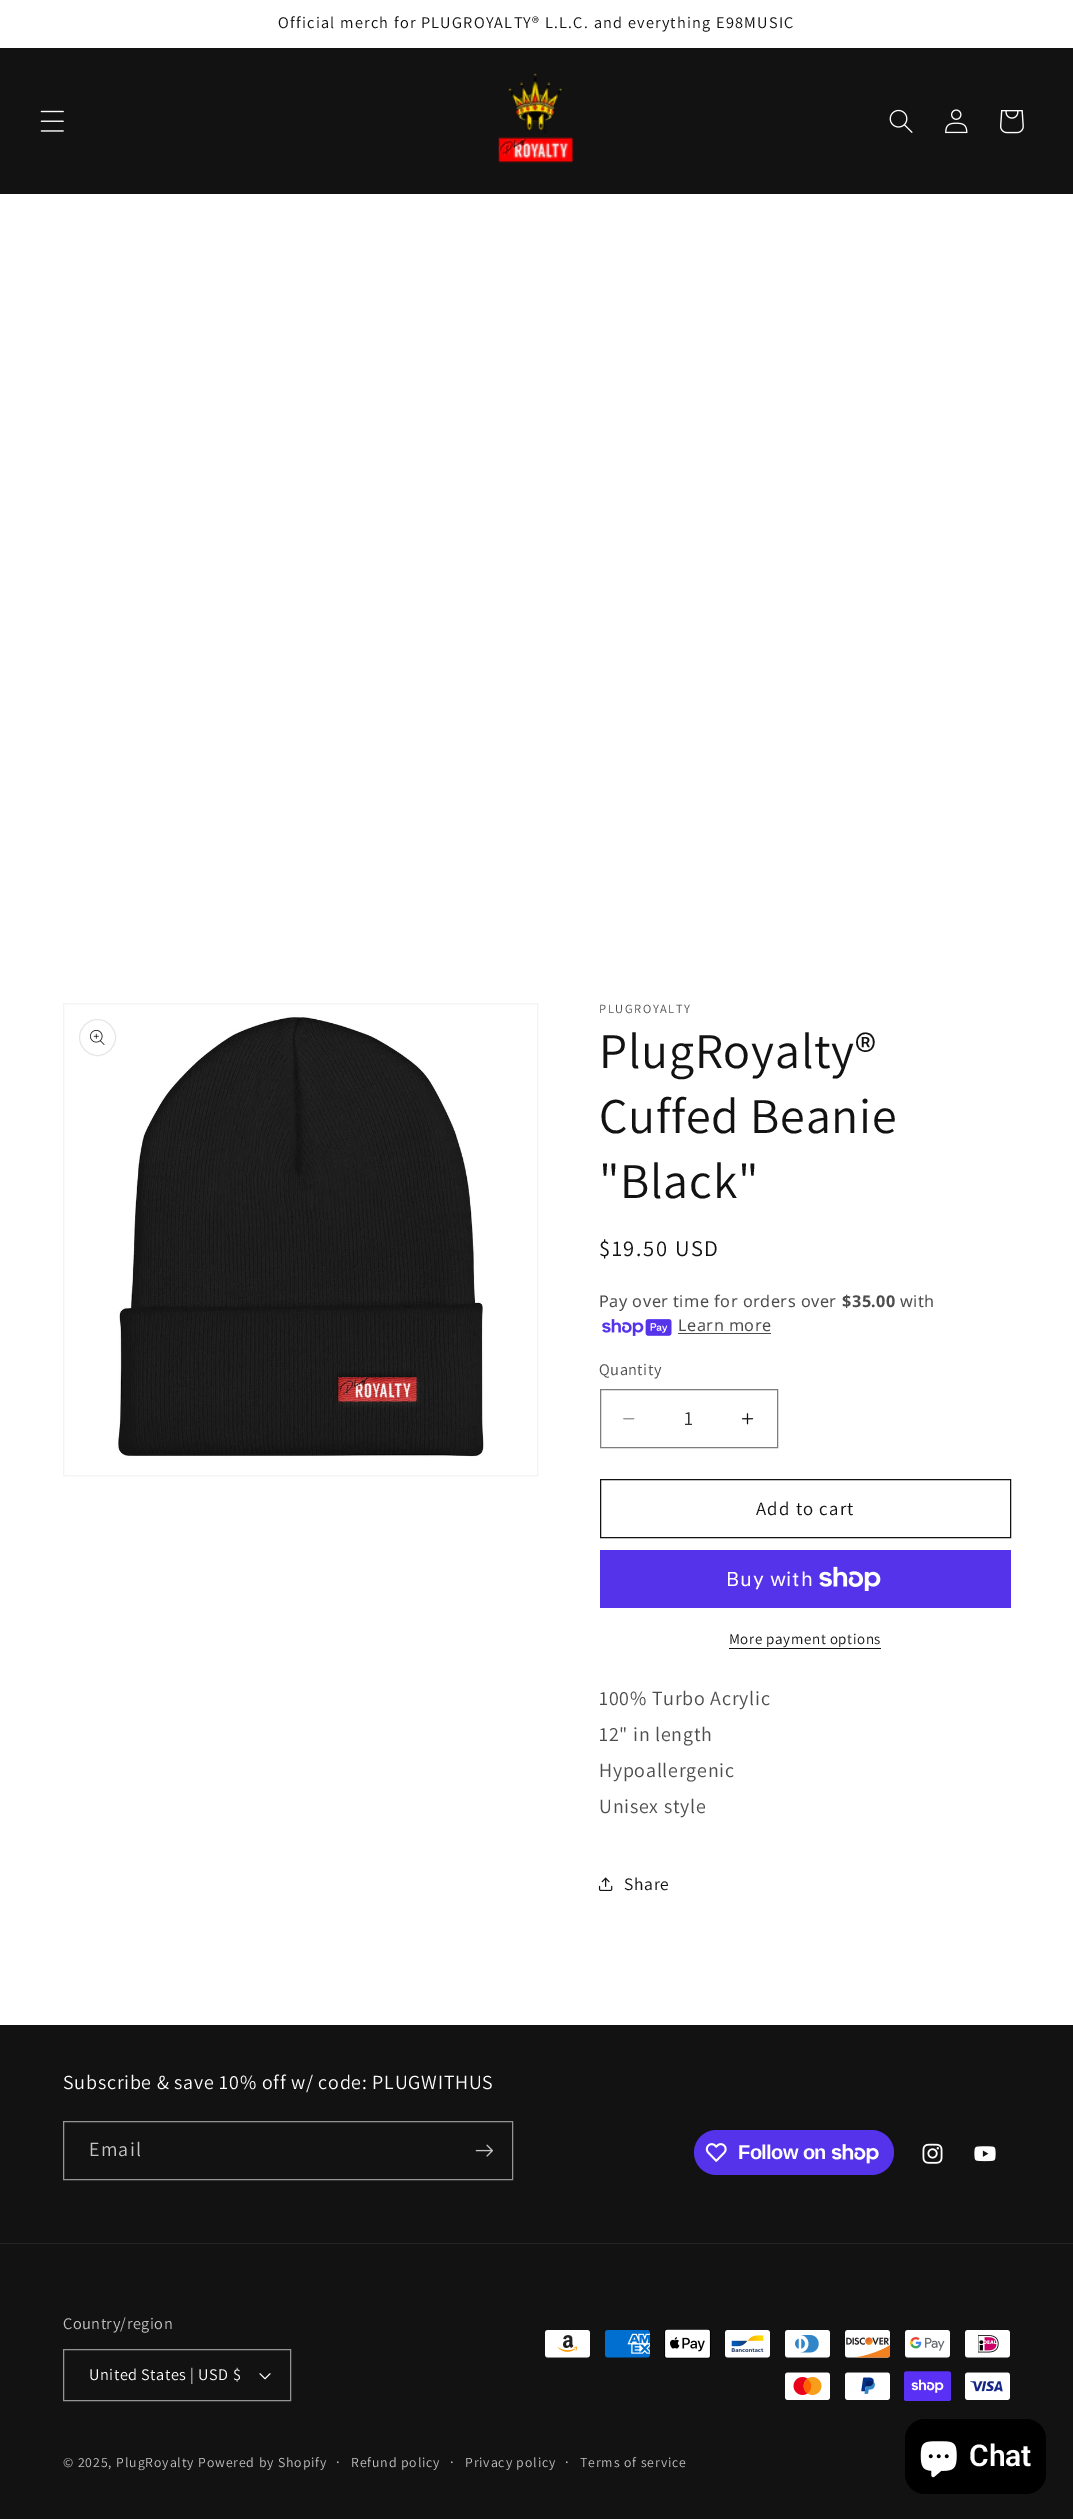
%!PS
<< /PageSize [1073 2519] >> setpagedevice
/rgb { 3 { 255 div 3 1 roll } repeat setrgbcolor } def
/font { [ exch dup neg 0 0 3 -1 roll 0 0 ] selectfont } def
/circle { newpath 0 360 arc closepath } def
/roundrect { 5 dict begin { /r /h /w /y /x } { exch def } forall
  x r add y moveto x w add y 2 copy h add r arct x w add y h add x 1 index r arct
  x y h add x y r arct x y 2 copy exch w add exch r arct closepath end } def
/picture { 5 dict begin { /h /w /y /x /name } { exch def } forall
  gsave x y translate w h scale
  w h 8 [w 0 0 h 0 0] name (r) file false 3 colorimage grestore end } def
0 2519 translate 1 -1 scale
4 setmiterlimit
255 255 255 rgb
0 0 1073 2519 rectfill
18 18 18 rgb
0 48 1073 146 rectfill
(img/1.rgb) 40 110 24 22 picture
(img/2.rgb) 498 73 76 90 picture
(img/3.rgb) 889 109 24 24 picture
(img/4.rgb) 945 109 23 25 picture
(img/5.rgb) 1000 110 24 24 picture
243 243 243 rgb
63.5 1003.5 474 472 rectstroke
231 231 231 rgb
97.5 1037.5 18 circle stroke
(img/6.rgb) 90 1030 15 15 picture
(img/7.rgb) 117 1015 367 442 picture
(img/8.rgb) 602 1319 70 17 picture
77 77 77 rgb
678 1333 93 1 rectfill
(img/9.rgb) 623 1418 12 2 picture
(img/10.rgb) 741 1413 13 12 picture
125 125 125 rgb
600.5 1389.5 177 58 rectstroke
18 18 18 rgb
600.5 1479.5 410 58 rectstroke
84 51 235 rgb
600 1550 411 58 rectfill
(img/11.rgb) 819 1566 62 25 picture
18 18 18 rgb
729 1648 152 1 rectfill
(img/12.rgb) 598 1877 15 14 picture
0 2025 1073 494 rectfill
148 148 148 rgb
63.5 2121.5 449 58 rectstroke
(img/13.rgb) 475 2144 18 13 picture
84 51 235 rgb
694 2130 200 45 22.5 roundrect fill
(img/14.rgb) 705 2143 22 19 picture
(img/15.rgb) 831 2144 48 20 picture
(img/16.rgb) 922 2143 21 21 picture
(img/17.rgb) 974 2146 22 16 picture
37 37 37 rgb
0 2243 1073 1 rectfill
(img/18.rgb) 259 2373 12 7 picture
148 148 148 rgb
63.5 2349.5 227 51 rectstroke
(img/19.rgb) 545 2330 45 28 picture
(img/20.rgb) 605 2330 45 28 picture
(img/21.rgb) 664 2329 47 30 picture
(img/22.rgb) 725 2330 45 28 picture
(img/23.rgb) 785 2330 45 28 picture
(img/24.rgb) 845 2330 46 28 picture
(img/25.rgb) 905 2330 45 28 picture
(img/26.rgb) 965 2330 45 28 picture
(img/27.rgb) 785 2372 45 28 picture
(img/28.rgb) 845 2372 45 28 picture
(img/29.rgb) 904 2371 47 30 picture
(img/30.rgb) 965 2372 45 28 picture
0 0 0 rgb
905 2419 141 75 20 roundrect fill
(img/31.rgb) 920 2441 37 37 picture
/Assistant-Regular 16.25 font
18 18 18 rgb
278 28 moveto 1.25 0 (Official merch for PLUGROYALTY® L.L.C. and everything E98MUSIC) ashow
/Assistant-Regular 12.5 font
77 77 77 rgb
599 1013 moveto 1.6 0 (PLUGROYALTY) ashow
/Assistant-Regular 50 font
18 18 18 rgb
599 1068 moveto 0.75 0 (PlugRoyalty®) ashow
599 1133 moveto 0.75 0 (Cuffed Beanie) ashow
599 1198 moveto 0.75 0 ("Black") ashow
/Assistant-Regular 22.5 font
599 1256 moveto 1.6 0 ($19.50 USD) ashow
/NotoSans-Regular 16.25 font
77 77 77 rgb
599 1307 moveto 0.5 0 (Pay over time for orders over) ashow
/NotoSans-Bold 16.25 font
842 1307 moveto 0.5 0 ($35.00) ashow
/NotoSans-Regular 16.25 font
900 1307 moveto 0.5 0 (with) ashow
678 1331 moveto 0.5 0 (Learn more) ashow
/Assistant-Regular 16.25 font
599 1375 moveto 0.5 0 (Quantity) ashow
/Assistant-Regular 20 font
54 54 54 rgb
684 1425 moveto (1) show
/Assistant-Regular 18.75 font
18 18 18 rgb
756 1515 moveto 1.25 0 (Add to cart) ashow
/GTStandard-Regular 20 font
255 255 255 rgb
726 1586 moveto 0.75 0 (Buy with) ashow
/Assistant-Regular 15 font
18 18 18 rgb
729 1644 moveto 0.6 0 (More payment options) ashow
/Assistant-Regular 20 font
77 77 77 rgb
599 1705 moveto 0.75 0 (100% Turbo Acrylic) ashow
599 1741 moveto 0.75 0 (12" in length) ashow
599 1777 moveto 0.75 0 (Hypoallergenic) ashow
599 1813 moveto 0.75 0 (Unisex style) ashow
/Assistant-Regular 17.5 font
18 18 18 rgb
624 1890 moveto 0.75 0 (Share) ashow
/Assistant-Regular 20 font
255 255 255 rgb
63 2089 moveto 0.75 0 (Subscribe & save 10% off w/ code: PLUGWITHUS) ashow
196 196 196 rgb
89 2156 moveto 1.25 0 (Email) ashow
/LiberationSans-Bold 20 font
255 255 255 rgb
738 2159 moveto -0.6 0 (Follow on) ashow
/Assistant-Regular 16.25 font
196 196 196 rgb
63 2329 moveto 0.5 0 (Country/region) ashow
255 255 255 rgb
89 2380 moveto 0.5 0 (United States | USD $) ashow
/Assistant-Regular 13.75 font
196 196 196 rgb
63 2467 moveto 0.9 0 (© 2025, PlugRoyalty Powered by Shopify) ashow
/Assistant-Regular 15 font
336 2467 moveto 0.9 0 (·) ashow
/Assistant-Regular 13.75 font
351 2467 moveto 0.9 0 (Refund policy) ashow
/Assistant-Regular 15 font
450 2467 moveto 0.9 0 (·) ashow
/Assistant-Regular 13.75 font
465 2467 moveto 0.9 0 (Privacy policy) ashow
/Assistant-Regular 15 font
565 2467 moveto 0.9 0 (·) ashow
/Assistant-Regular 13.75 font
580 2467 moveto 0.9 0 (Terms of service) ashow
/Roboto-SemiBold 30 font
255 255 255 rgb
969 2466 moveto (Chat) show
showpage
